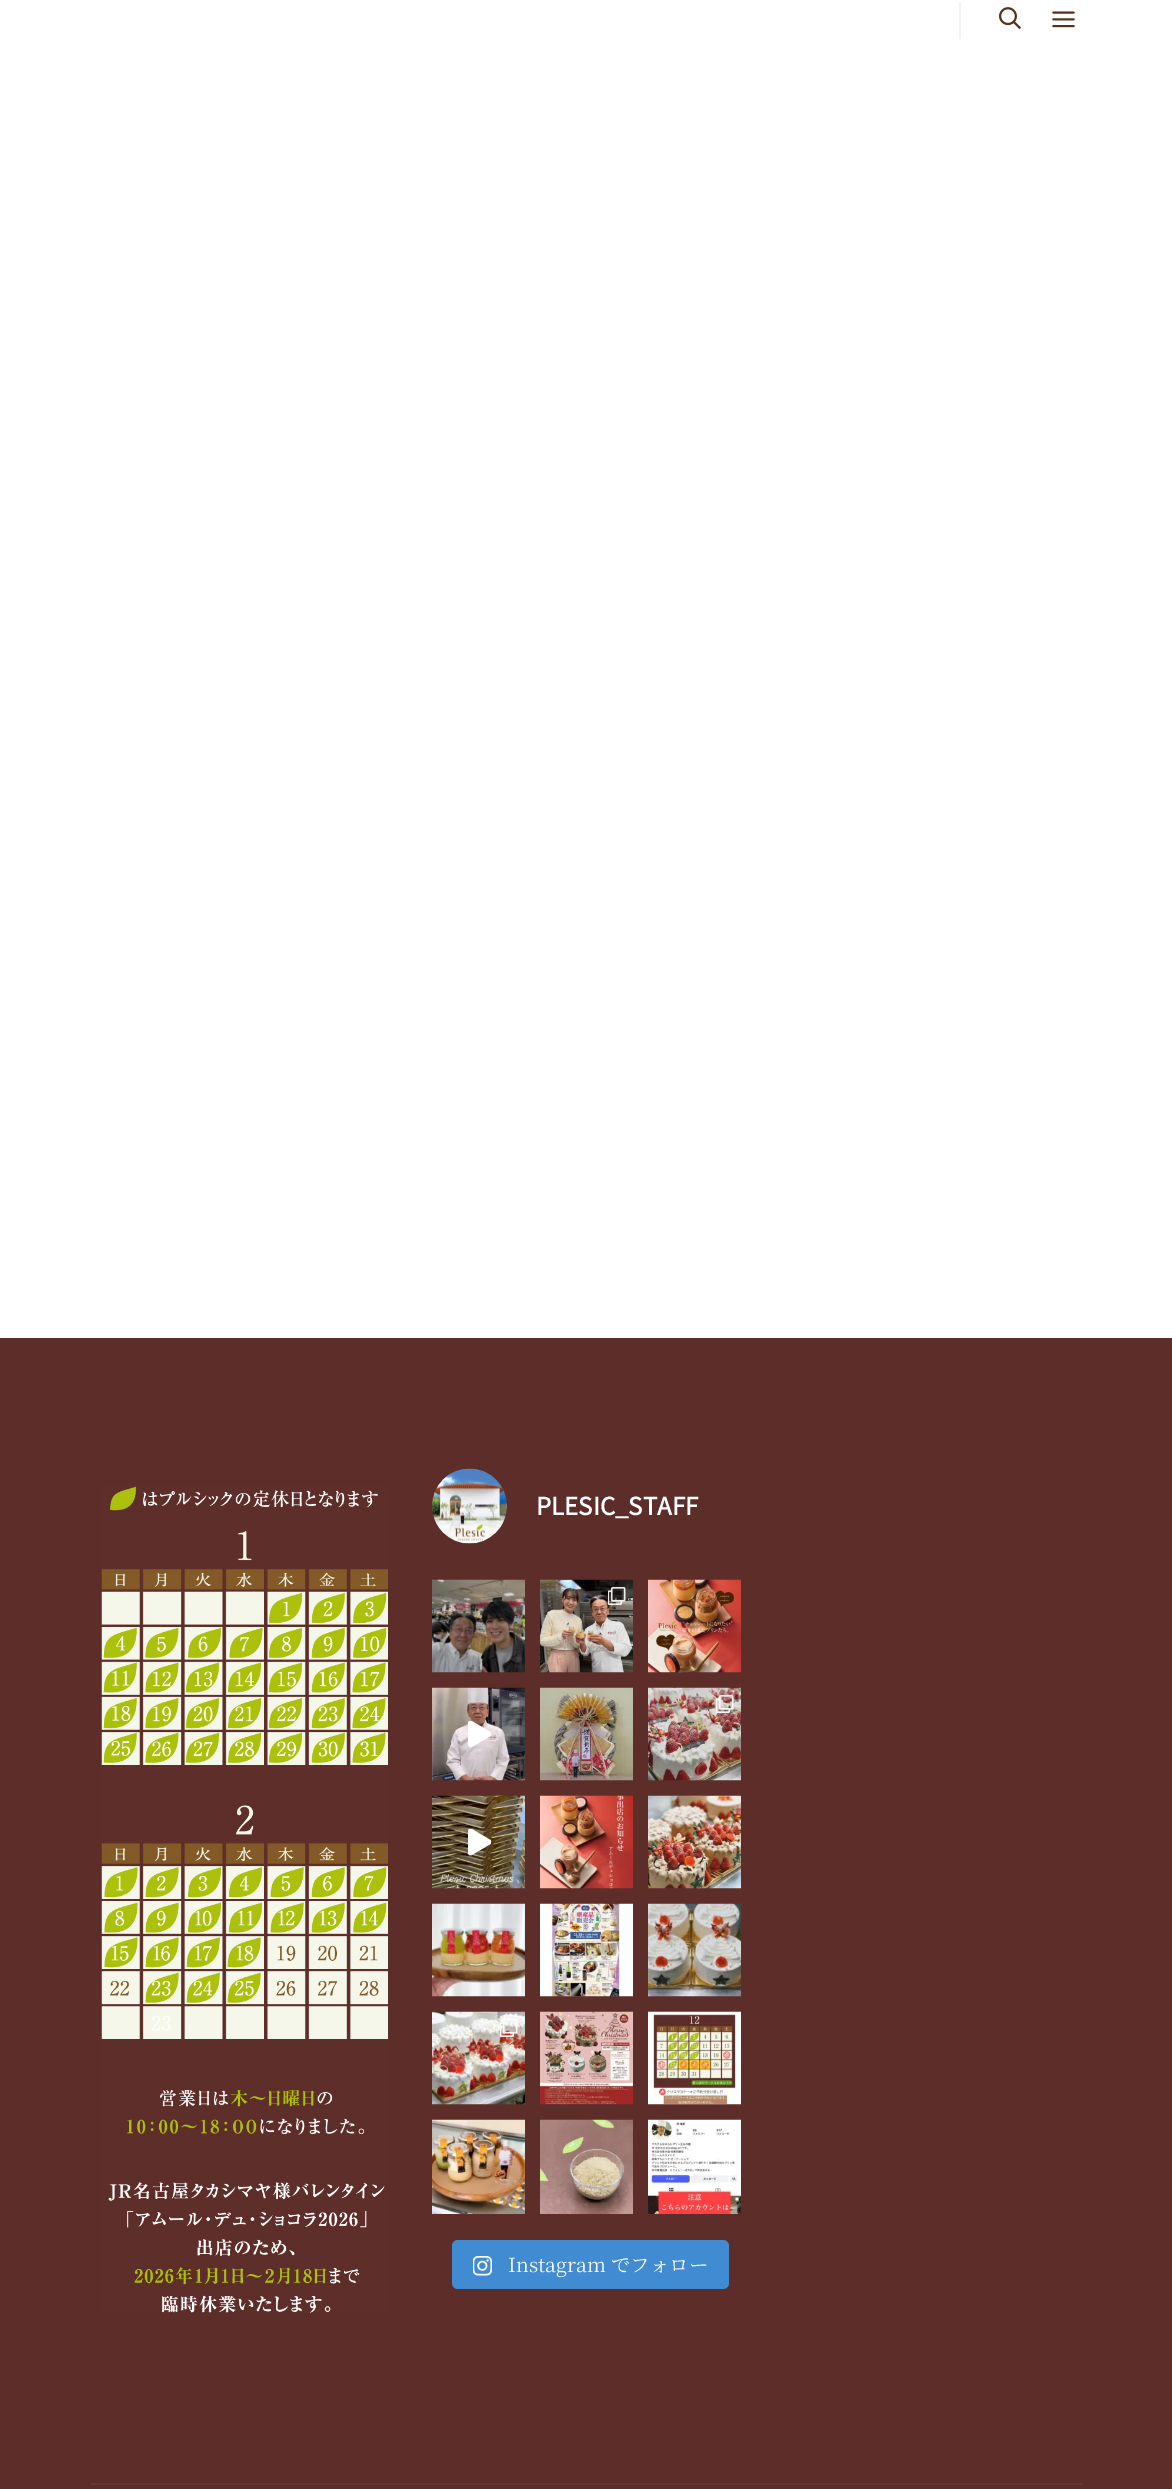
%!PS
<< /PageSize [1172 2489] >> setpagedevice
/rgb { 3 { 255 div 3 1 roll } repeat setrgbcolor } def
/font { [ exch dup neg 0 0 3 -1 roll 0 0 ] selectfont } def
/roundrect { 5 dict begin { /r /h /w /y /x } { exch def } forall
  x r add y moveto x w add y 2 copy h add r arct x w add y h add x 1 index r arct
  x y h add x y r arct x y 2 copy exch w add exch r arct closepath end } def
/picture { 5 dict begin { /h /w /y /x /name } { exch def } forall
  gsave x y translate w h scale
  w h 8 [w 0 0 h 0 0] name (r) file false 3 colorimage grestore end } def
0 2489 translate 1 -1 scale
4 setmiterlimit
255 255 255 rgb
0 0 1172 2489 rectfill
243 243 243 rgb
959 2 2 37 rectfill
(img/1.rgb) 999 7 22 23 picture
(img/2.rgb) 1052 11 23 17 picture
93 46 41 rgb
0 1338 1172 1151 rectfill
(img/3.rgb) 101 1486 287 827 picture
(img/4.rgb) 432 1468 75 76 picture
(img/5.rgb) 432 1579 93 94 picture
(img/6.rgb) 540 1579 93 94 picture
(img/7.rgb) 608 1587 18 18 picture
(img/8.rgb) 648 1579 93 94 picture
(img/9.rgb) 432 1687 93 94 picture
(img/10.rgb) 468 1721 23 27 picture
(img/11.rgb) 540 1687 93 94 picture
(img/12.rgb) 648 1687 93 94 picture
(img/13.rgb) 716 1695 18 18 picture
(img/14.rgb) 432 1795 93 94 picture
(img/15.rgb) 468 1829 23 27 picture
(img/16.rgb) 540 1795 93 94 picture
(img/17.rgb) 648 1795 93 94 picture
(img/18.rgb) 432 1903 93 94 picture
(img/19.rgb) 540 1903 93 94 picture
(img/20.rgb) 648 1903 93 94 picture
(img/21.rgb) 432 2011 93 94 picture
(img/22.rgb) 500 2019 18 18 picture
(img/23.rgb) 540 2011 93 94 picture
(img/24.rgb) 648 2011 93 94 picture
(img/25.rgb) 432 2119 93 95 picture
(img/26.rgb) 540 2119 93 95 picture
(img/27.rgb) 648 2119 93 95 picture
64 139 209 rgb
452 2240 277 49 6 roundrect fill
(img/28.rgb) 473 2256 19 20 picture
101 56 52 rgb
90 2483 993 2 rectfill
/NotoSansJP-Bold 24 font
255 255 255 rgb
536 1515 moveto (PLESIC_STAFF) show
/NotoSerifJP-Regular 19.5 font
508 2272 moveto (Instagram でフォロー) show
showpage
